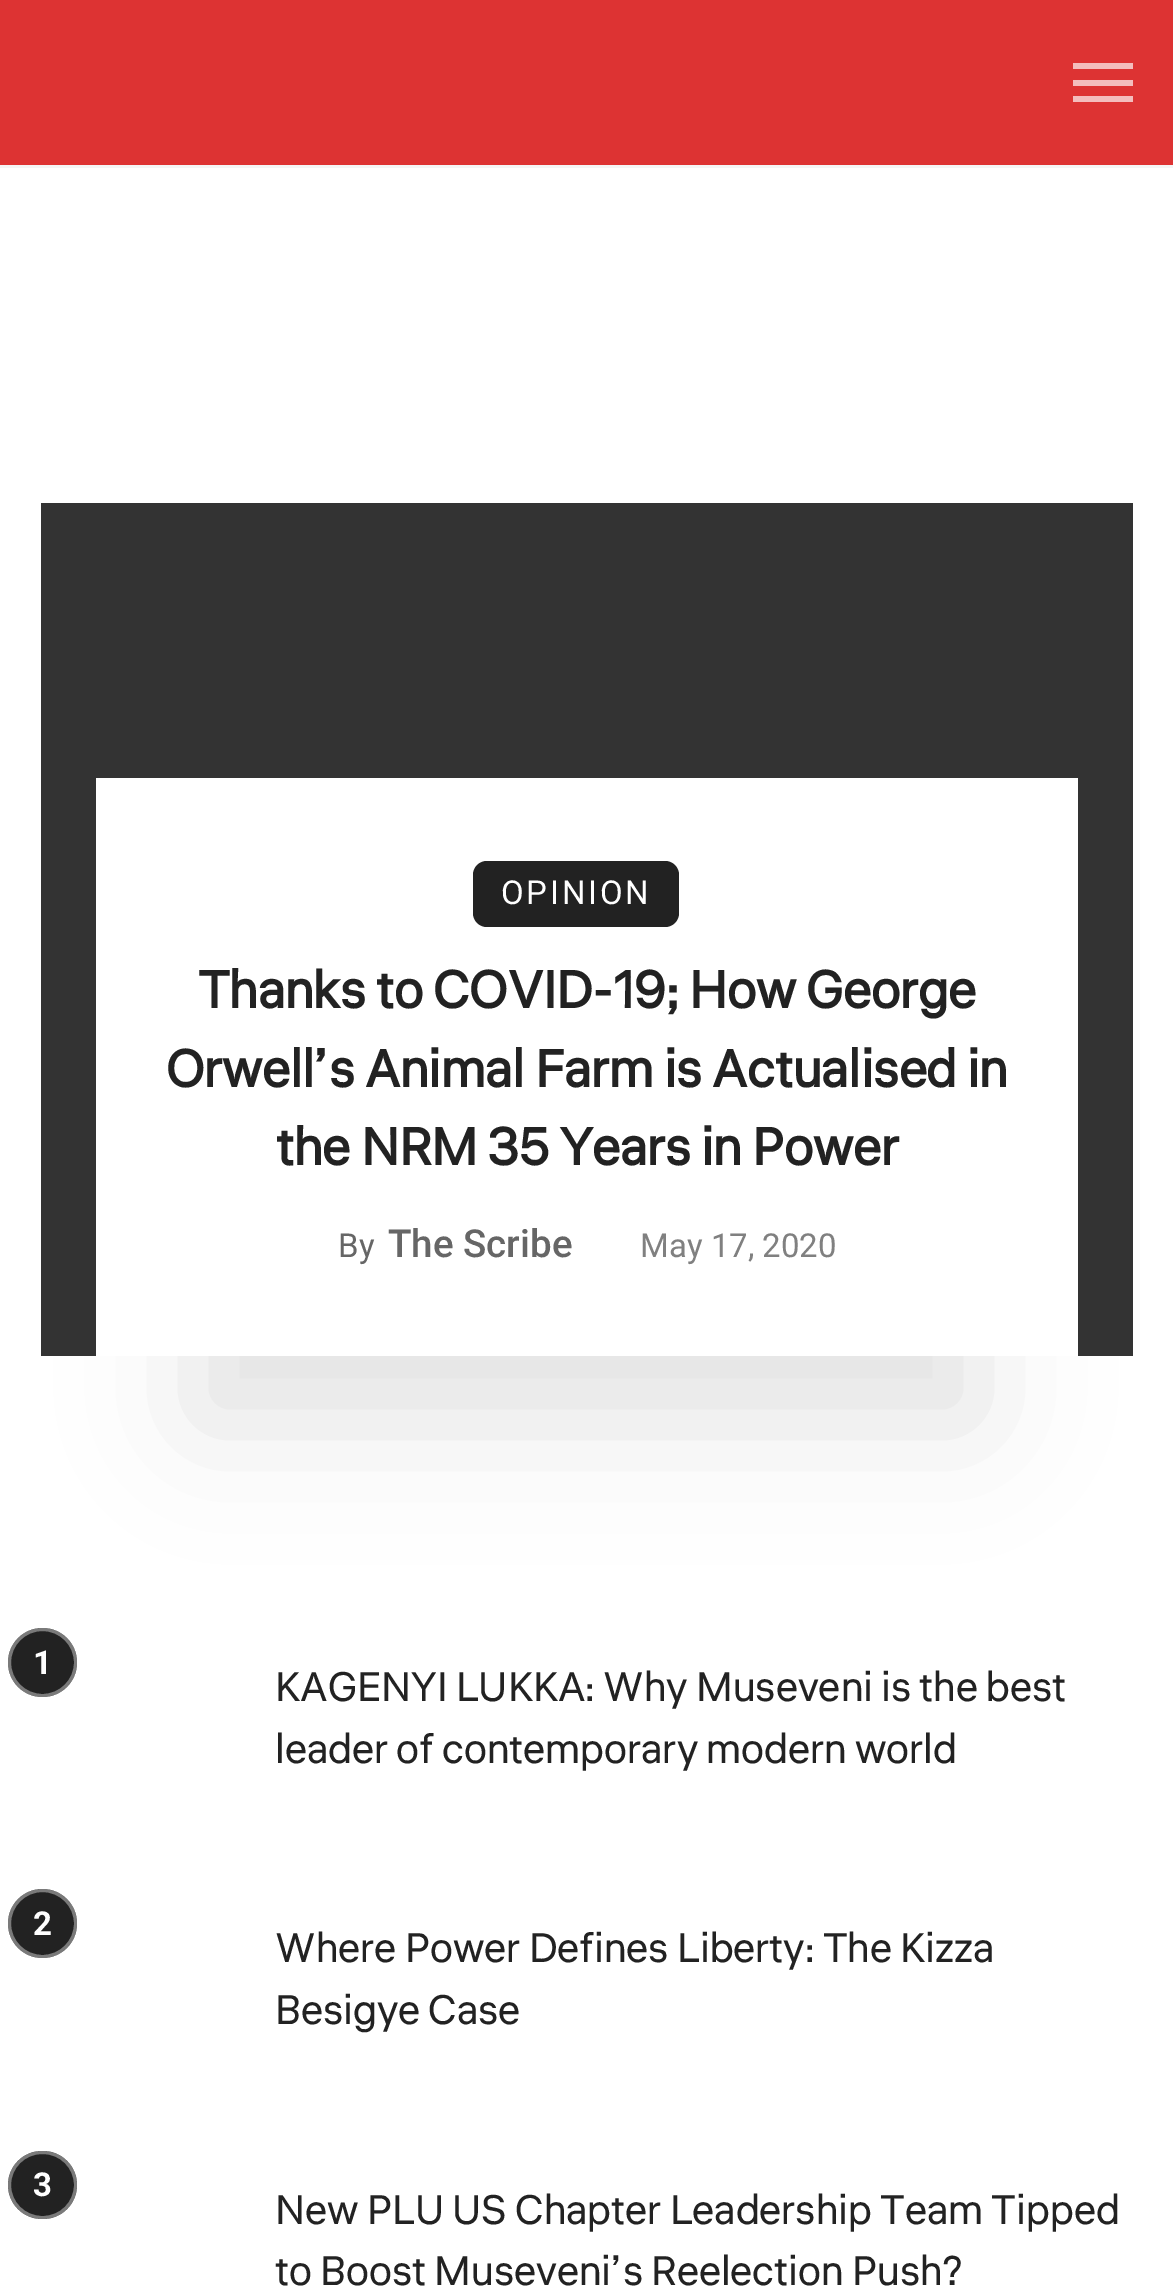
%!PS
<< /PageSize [1173 2288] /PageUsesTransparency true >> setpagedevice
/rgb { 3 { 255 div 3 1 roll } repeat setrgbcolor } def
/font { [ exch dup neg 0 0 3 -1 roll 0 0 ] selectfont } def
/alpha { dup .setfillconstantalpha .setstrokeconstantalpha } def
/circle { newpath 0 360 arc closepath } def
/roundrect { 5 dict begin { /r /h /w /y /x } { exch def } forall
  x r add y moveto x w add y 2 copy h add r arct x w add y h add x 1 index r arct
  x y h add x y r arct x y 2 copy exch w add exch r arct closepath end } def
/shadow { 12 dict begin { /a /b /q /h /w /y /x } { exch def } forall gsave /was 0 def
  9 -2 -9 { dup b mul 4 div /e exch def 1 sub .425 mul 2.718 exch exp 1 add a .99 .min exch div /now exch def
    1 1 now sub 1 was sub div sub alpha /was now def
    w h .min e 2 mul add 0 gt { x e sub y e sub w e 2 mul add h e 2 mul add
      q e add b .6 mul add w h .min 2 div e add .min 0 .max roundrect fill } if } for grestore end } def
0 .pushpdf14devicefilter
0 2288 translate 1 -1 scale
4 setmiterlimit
255 255 255 rgb
0 0 1173 2288 rectfill
[
  [0 165 1173 3 245 245 245]
  [0 0 1173 165 221 51 51]
  [1073 80 60 6 244 189 189]
  [1073 63 60 6 244 189 189]
  [1073 96 60 6 244 189 189]
  [41 503 1092 853 51 51 51]
] { aload pop rgb rectfill } forall
0 0 0 rgb
193 847 786 578 0 62 0.11 shadow
255 255 255 rgb
96 778 982 578 rectfill
34 34 34 rgb
473 861 206 66 14 roundrect fill
42.5 1662.5 34.5 circle fill
0.4 alpha
255 255 255 rgb
3 setlinewidth
42.5 1662.5 33 circle stroke
1 alpha
34 34 34 rgb
42.5 1923.5 34.5 circle fill
0.4 alpha
255 255 255 rgb
42.5 1923.5 33 circle stroke
1 alpha
34 34 34 rgb
8 2151 69 68 34 roundrect fill
0.4 alpha
255 255 255 rgb
9.5 2152.5 66 65 32.5 roundrect stroke
/Roboto-Regular 33 font
1 alpha
501 904 moveto 2.75 0 (OPINION) ashow
/Liter-Bold 52.25 font
34 34 34 rgb
[
  [(Thanks to COVID-19; How George) 198 1008]
  [(Orwell’s Animal Farm is Actualised in) 166 1087]
  [(the NRM 35 Years in Power) 276 1165]
] { aload pop moveto show } forall
/Roboto-Regular 33 font
102 102 102 rgb
338 1257 moveto (By) show
/Roboto-Medium 38.5 font
388 1257 moveto (The Scribe) show
/Roboto-Regular 33 font
128 128 128 rgb
640 1257 moveto (May 17, 2020) show
/Roboto-Bold 33 font
255 255 255 rgb
33 1674 moveto (1) show
/Liter-Regular 41.25 font
34 34 34 rgb
275 1701 moveto (KAGENYI LUKKA: Why Museveni is the best) show
275 1763 moveto (leader of contemporary modern world) show
/Roboto-Bold 33 font
255 255 255 rgb
33 1935 moveto (2) show
/Liter-Regular 41.25 font
34 34 34 rgb
275 1962 moveto (Where Power Defines Liberty: The Kizza) show
275 2024 moveto (Besigye Case) show
/Roboto-Bold 33 font
255 255 255 rgb
33 2196 moveto (3) show
/Liter-Regular 41.25 font
34 34 34 rgb
275 2224 moveto (New PLU US Chapter Leadership Team Tipped) show
275 2285 moveto (to Boost Museveni’s Reelection Push?) show
.poppdf14devicefilter showpage
